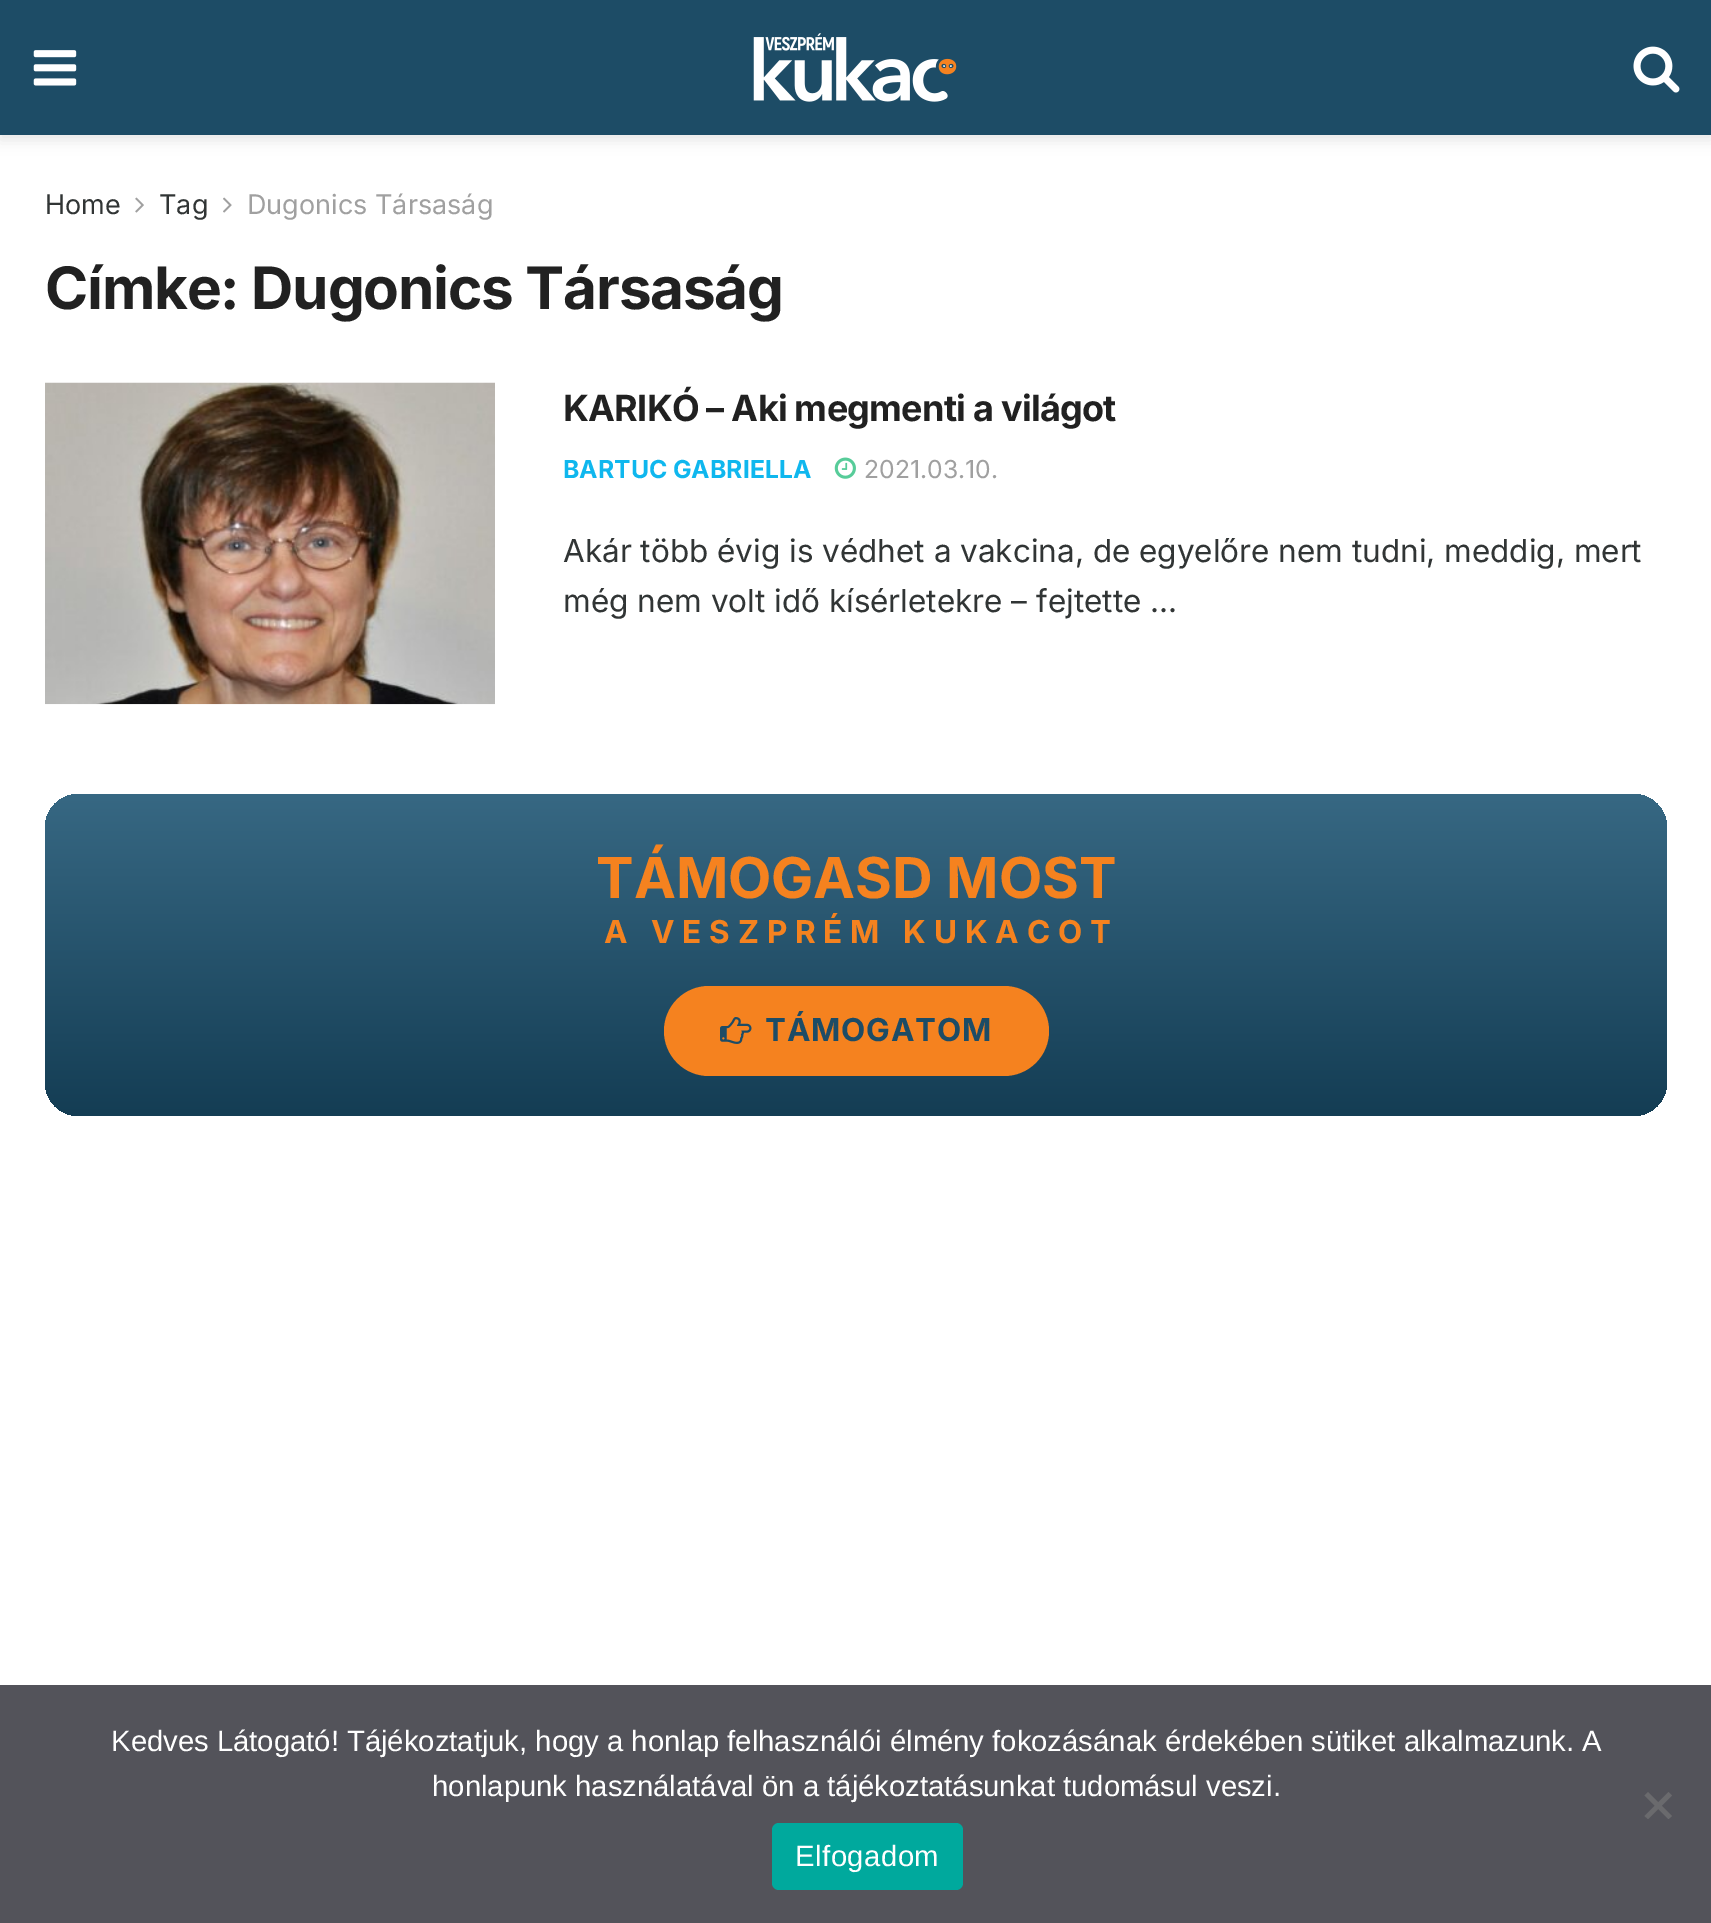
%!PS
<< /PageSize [1711 1923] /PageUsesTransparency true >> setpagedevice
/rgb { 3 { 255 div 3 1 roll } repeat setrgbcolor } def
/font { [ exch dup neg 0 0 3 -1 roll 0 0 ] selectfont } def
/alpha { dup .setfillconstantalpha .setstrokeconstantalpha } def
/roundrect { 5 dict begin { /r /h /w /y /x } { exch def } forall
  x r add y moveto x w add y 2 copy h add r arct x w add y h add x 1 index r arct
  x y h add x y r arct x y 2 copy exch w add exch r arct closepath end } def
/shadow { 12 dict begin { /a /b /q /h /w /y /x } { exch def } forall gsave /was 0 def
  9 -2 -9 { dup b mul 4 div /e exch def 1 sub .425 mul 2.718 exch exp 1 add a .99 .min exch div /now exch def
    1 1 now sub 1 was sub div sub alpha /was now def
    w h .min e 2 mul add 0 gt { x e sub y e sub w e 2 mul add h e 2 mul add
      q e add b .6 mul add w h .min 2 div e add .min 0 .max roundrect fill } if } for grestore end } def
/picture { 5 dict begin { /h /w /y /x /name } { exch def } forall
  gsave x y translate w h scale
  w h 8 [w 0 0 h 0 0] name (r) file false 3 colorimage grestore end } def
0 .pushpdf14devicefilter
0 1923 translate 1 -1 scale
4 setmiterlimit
255 255 255 rgb
0 0 1711 1923 rectfill
0 0 0 rgb
0 5 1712 135 0 7 0.1 shadow
29 76 102 rgb
0 0 1711 135 rectfill
(img/1.rgb) 33 50 44 36 picture
(img/2.rgb) 753 33 204 69 picture
(img/3.rgb) 1633 46 47 47 picture
(img/4.rgb) 135 197 9 16 picture
(img/5.rgb) 223 197 9 16 picture
(img/7.rgb) 293 382 89 1 picture
(img/6.rgb) 45 382 450 323 picture
(img/8.rgb) 834 457 22 22 picture
gsave 45 794 1622 322 34 roundrect clip newpath
<< /ShadingType 2 /ColorSpace /DeviceRGB /Coords [856 1116 856 794] /Extend [true true] /Function << /FunctionType 2 /Domain [0 1] /C0 [0.078 0.239 0.329] /C1 [0.216 0.408 0.514] /N 1 >> >> shfill grestore
245 130 31 rgb
664 986 385 90 45 roundrect fill
(img/9.rgb) 720 1017 32 27 picture
83 83 90 rgb
0 1685 1711 238 rectfill
106 106 109 rgb
1668.5 1792 moveto 1672 1795.5 lineto 1648 1819 lineto 1644.5 1816 lineto closepath fill
1644.5 1795.5 moveto 1648 1792 lineto 1672 1816 lineto 1668.5 1819 lineto closepath fill
0 169 157 rgb
772 1823 191 67 7 roundrect fill
/Inter-Regular 27 font
49 53 53 rgb
45 214 moveto (Home) show
159 214 moveto (Tag) show
160 160 160 rgb
247 214 moveto (Dugonics Társaság) show
/Inter-Bold 58.5 font
33 33 33 rgb
45 309 moveto -1.2 0 (Címke: Dugonics Társaság) ashow
/Inter-Bold 36 font
563 421 moveto -0.75 0 (KARIKÓ – Aki megmenti a világot) ashow
/Inter-Bold 24.75 font
15 183 238 rgb
563 478 moveto (BARTUC GABRIELLA) show
/Inter-Regular 24.75 font
160 160 160 rgb
864 478 moveto (2021.03.10.) show
/Inter-Regular 31.5 font
49 53 53 rgb
563 562 moveto (Akár több évig is védhet a vakcina, de egyelőre nem tudni, meddig, mert) show
563 612 moveto (még nem volt idő kísérletekre – fejtette ...) show
/Inter-Bold 56.25 font
245 130 31 rgb
596 898 moveto (TÁMOGASD MOST) show
/Inter-Bold 31.5 font
604 943 moveto 7.9 0 (A VESZPRÉM KUKACOT) ashow
29 76 102 rgb
765 1041 moveto 0.75 0 (TÁMOGATOM) ashow
/LiberationSans-Regular 29.25 font
255 255 255 rgb
111 1751 moveto (Kedves Látogató! Tájékoztatjuk, hogy a honlap felhasználói élmény fokozásának érdekében sütiket alkalmazunk. A) show
432 1796 moveto (honlapunk használatával ön a tájékoztatásunkat tudomásul veszi.) show
795 1866 moveto 0.5 0 (Elfogadom) ashow
.poppdf14devicefilter showpage
